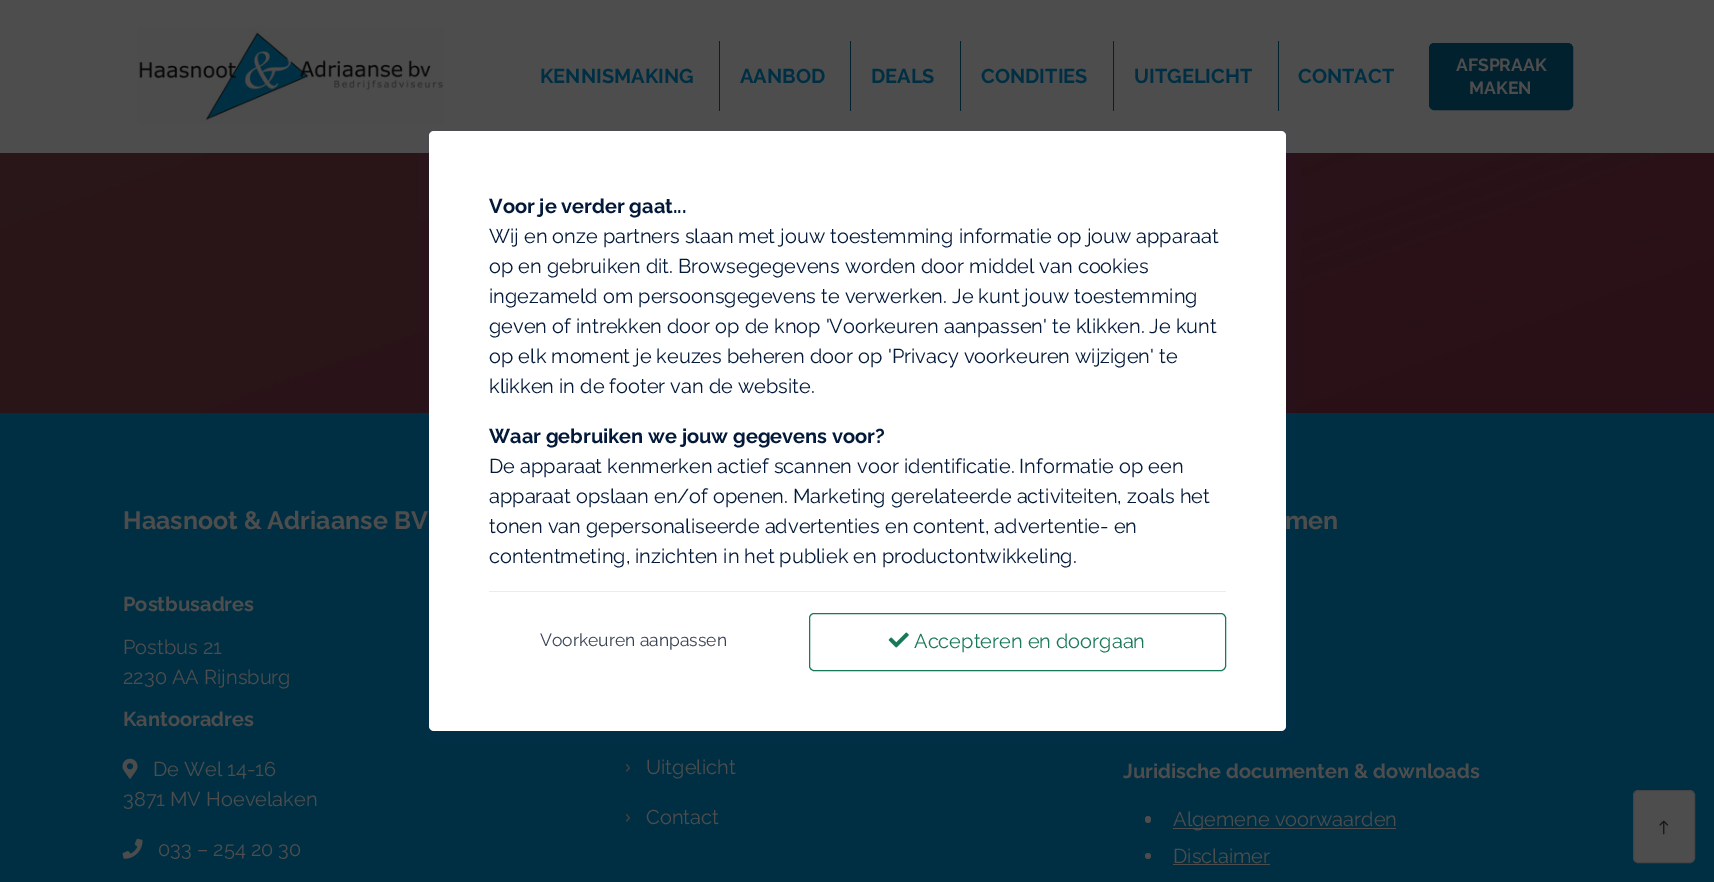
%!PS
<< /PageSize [1714 882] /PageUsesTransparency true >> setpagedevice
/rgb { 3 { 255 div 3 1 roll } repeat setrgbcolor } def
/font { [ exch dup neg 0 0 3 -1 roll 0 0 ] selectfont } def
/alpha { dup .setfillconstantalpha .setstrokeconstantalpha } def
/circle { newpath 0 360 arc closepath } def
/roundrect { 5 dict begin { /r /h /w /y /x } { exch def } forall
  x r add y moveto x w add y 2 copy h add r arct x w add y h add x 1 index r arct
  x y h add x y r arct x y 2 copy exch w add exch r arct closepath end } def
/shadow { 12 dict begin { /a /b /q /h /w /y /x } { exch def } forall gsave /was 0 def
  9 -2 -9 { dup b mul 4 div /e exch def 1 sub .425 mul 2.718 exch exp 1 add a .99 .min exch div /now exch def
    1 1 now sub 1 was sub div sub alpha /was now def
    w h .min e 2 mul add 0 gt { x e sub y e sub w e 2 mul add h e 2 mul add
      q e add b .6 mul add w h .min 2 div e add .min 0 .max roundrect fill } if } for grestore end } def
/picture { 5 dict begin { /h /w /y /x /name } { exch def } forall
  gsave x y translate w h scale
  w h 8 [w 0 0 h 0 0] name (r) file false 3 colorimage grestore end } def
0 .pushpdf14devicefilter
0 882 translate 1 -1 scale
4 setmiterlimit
0 47 67 rgb
0 0 1714 882 rectfill
77 77 77 rgb
0 0 1714 153 rectfill
(img/1.rgb) 138 27 306 97 picture
[
  [719 41 1 70 2 33 47]
  [850 41 1 70 2 33 47]
  [960 41 1 70 2 33 47]
  [1113 41 1 70 2 33 47]
  [1278 41 1 70 2 33 47]
] { aload pop rgb rectfill } forall
1429.5 43.5 143 66 4.5 roundrect gsave fill grestore
stroke
(img/2.rgb) 0 153 1714 260 picture
(img/3.rgb) 122 758 16 21 picture
(img/4.rgb) 122 838 21 21 picture
63 64 66 rgb
1.1 setlinewidth
1 setlinecap
1 setlinejoin
626.5 771 moveto 629.5 768 lineto 626.5 764.5 lineto 626.5 821 moveto 629.5 818 lineto 626.5 814.5 lineto stroke
77 77 77 rgb
1145 816 6 7 3 roundrect fill
1173 828 223 1 rectfill
1148 856 3 circle fill
1173 864 97 1 rectfill
1633.5 790.5 61 72 4.5 roundrect gsave fill grestore
69 69 71 rgb
1 setlinewidth
0 setlinecap
0 setlinejoin
stroke
(img/5.rgb) 1659 820 9 15 picture
55 26 134 rgb
429 135 857 600 5 12.5 0.1 shadow
255 255 255 rgb
429 131 857 600 5 roundrect fill
236 236 236 rgb
489 591 737 1 rectfill
24 121 88 rgb
809.5 613.5 416 57 4.5 roundrect stroke
(img/6.rgb) 888 632 21 16 picture
/Raleway-Bold 20 font
0 47 67 rgb
[
  [(KENNISMAKING) 540 83]
  [(AANBOD) 740 83]
  [(DEALS) 871 83]
  [(CONDITIES) 981 83]
  [(UITGELICHT) 1134 83]
  [(CONTACT) 1298 83]
] { aload pop moveto show } forall
/Raleway-Bold 17.5 font
77 77 77 rgb
1456 71 moveto (AFSPRAAK) show
1469 94 moveto (MAKEN) show
/Raleway-Bold 25 font
123 529 moveto (Haasnoot & Adriaanse BV) show
/Raleway-Bold 20 font
123 611 moveto (Postbusadres) show
/Raleway-Regular 20 font
123 654 moveto (Postbus 21) show
123 684 moveto (2230 AA Rijnsburg) show
/Raleway-Bold 20 font
123 726 moveto (Kantooradres) show
/Raleway-Regular 20 font
[
  [(De Wel 14-16) 153 776]
  [(3871 MV Hoevelaken) 123 806]
  [(033 – 254 20 30) 158 856]
  [(Uitgelicht) 646 774]
  [(Contact) 646 824]
] { aload pop moveto show } forall
/Raleway-Bold 25 font
1285 529 moveto (men) show
/Raleway-Bold 20 font
1123 778 moveto (Juridische documenten & downloads) show
/Raleway-Regular 20 font
1173 826 moveto (Algemene voorwaarden) show
1173 863 moveto (Disclaimer) show
/Raleway-Bold 20 font
2 25 57 rgb
489 213 moveto (Voor je verder gaat...) show
/Raleway-Regular 20 font
[
  [(Wij en onze partners slaan met jouw toestemming informatie op jouw apparaat) 489 243]
  [(op en gebruiken dit. Browsegegevens worden door middel van cookies) 489 273]
  [(ingezameld om persoonsgegevens te verwerken. Je kunt jouw toestemming) 489 303]
  [(geven of intrekken door op de knop 'Voorkeuren aanpassen' te klikken. Je kunt) 489 333]
  [(op elk moment je keuzes beheren door op 'Privacy voorkeuren wijzigen' te) 489 363]
  [(klikken in de footer van de website.) 489 393]
] { aload pop moveto show } forall
/Raleway-Bold 20 font
489 443 moveto (Waar gebruiken we jouw gegevens voor?) show
/Raleway-Regular 20 font
[
  [(De apparaat kenmerken actief scannen voor identificatie. Informatie op een) 489 473]
  [(apparaat opslaan en/of openen. Marketing gerelateerde activiteiten, zoals het) 489 503]
  [(tonen van gepersonaliseerde advertenties en content, advertentie- en) 489 533]
  [(contentmeting, inzichten in het publiek en productontwikkeling.) 489 563]
] { aload pop moveto show } forall
/Raleway-Regular 17.5 font
55 65 81 rgb
540 646 moveto (Voorkeuren aanpassen) show
/Raleway-Regular 20 font
24 121 88 rgb
914 648 moveto (Accepteren en doorgaan) show
.poppdf14devicefilter showpage
